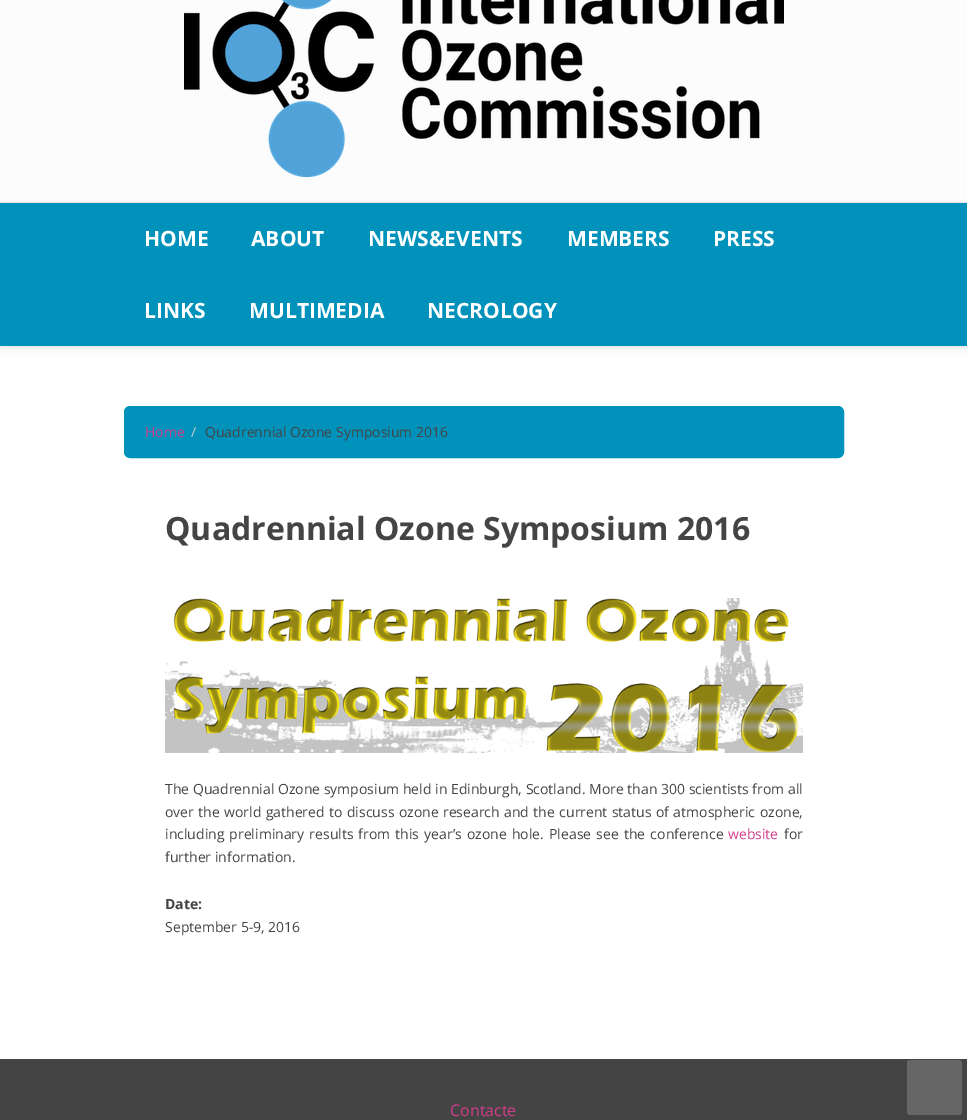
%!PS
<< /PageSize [967 1120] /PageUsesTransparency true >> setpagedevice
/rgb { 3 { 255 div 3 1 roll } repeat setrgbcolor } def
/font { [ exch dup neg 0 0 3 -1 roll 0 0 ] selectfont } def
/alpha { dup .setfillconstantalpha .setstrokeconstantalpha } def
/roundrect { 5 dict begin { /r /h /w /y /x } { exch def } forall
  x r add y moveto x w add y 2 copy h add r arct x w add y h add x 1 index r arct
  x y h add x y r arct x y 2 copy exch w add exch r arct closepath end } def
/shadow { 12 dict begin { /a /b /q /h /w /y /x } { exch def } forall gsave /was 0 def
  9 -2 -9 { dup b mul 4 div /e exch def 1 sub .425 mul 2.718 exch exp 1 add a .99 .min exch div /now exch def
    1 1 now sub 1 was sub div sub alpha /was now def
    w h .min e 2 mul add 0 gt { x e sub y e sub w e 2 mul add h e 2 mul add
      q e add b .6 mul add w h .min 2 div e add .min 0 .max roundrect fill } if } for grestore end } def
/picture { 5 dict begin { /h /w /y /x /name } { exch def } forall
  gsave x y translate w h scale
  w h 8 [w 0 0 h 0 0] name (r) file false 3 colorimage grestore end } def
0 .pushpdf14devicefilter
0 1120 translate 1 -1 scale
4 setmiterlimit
255 255 255 rgb
0 0 967 1120 rectfill
252 252 252 rgb
0 0 967 202 rectfill
234 234 234 rgb
0 202 967 1 rectfill
(img/1.rgb) 184 0 600 177 picture
252 252 252 rgb
0 346 967 10 rectfill
0 0 0 rgb
0 205 967 143 0 2 0.07 shadow
0 146 187 rgb
0 203 967 143 rectfill
124.5 406.5 719 51 5.5 roundrect gsave fill grestore
stroke
(img/2.rgb) 165 598 638 155 picture
68 68 68 rgb
0 1059 967 61 rectfill
102 102 102 rgb
907 1060 55 55 3 roundrect fill
/OpenSans-Bold 21 font
255 255 255 rgb
[
  [(HOME) 144 246]
  [(ABOUT) 251 246]
  [(NEWS&EVENTS) 368 246]
  [(MEMBERS) 567 246]
  [(PRESS) 713 246]
  [(LINKS) 144 318]
  [(MULTIMEDIA) 249 318]
  [(NECROLOGY) 427 318]
] { aload pop moveto show } forall
/OpenSans-Regular 14 font
211 60 140 rgb
145 437 moveto (Home) show
204 204 204 rgb
191 437 moveto (/) show
68 68 68 rgb
205 437 moveto (Quadrennial Ozone Symposium 2016) show
/OpenSans-Bold 32 font
165 540 moveto (Quadrennial Ozone Symposium 2016) show
/OpenSans-Regular 14 font
165 794 moveto (The Quadrennial Ozone symposium held in Edinburgh, Scotland. More than 300 scientists from all) show
165 817 moveto 0.75 0 32 (over the world gathered to discuss ozone research and the current status of atmospheric ozone,) widthshow
165 839 moveto 1.5 0 32 (including preliminary results from this year’s ozone hole. Please see the conference) widthshow
211 60 140 rgb
728 839 moveto (website) show
68 68 68 rgb
784 839 moveto (for) show
165 862 moveto (further information.) show
/OpenSans-Bold 14 font
165 909 moveto (Date:) show
/OpenSans-Regular 14 font
165 932 moveto (September 5-9, 2016) show
/OpenSans-Regular 16 font
211 60 140 rgb
450 1116 moveto (Contacte) show
.poppdf14devicefilter showpage
